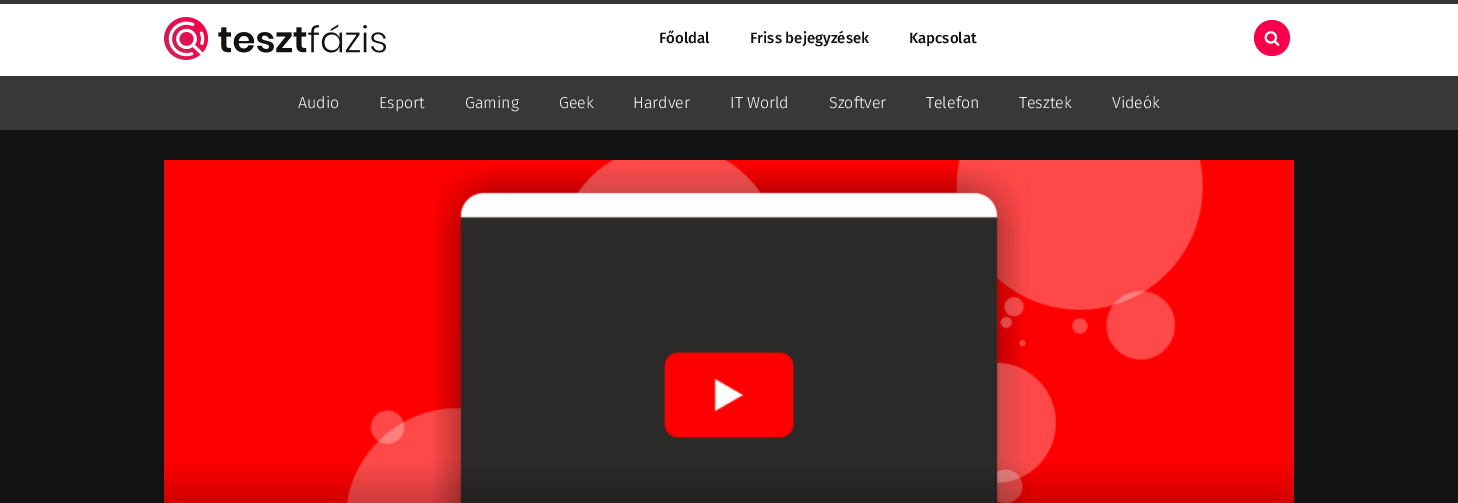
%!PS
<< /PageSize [1458 503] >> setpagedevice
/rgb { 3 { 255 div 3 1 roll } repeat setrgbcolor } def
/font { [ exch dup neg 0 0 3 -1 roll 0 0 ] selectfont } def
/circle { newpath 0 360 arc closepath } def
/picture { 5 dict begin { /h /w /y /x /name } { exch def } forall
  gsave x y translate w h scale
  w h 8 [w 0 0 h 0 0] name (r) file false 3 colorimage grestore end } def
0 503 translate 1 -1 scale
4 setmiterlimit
18 18 18 rgb
0 0 1458 503 rectfill
56 56 56 rgb
0 0 1458 4 rectfill
255 255 255 rgb
0 4 1458 72 rectfill
(img/1.rgb) 164 17 222 43 picture
248 1 76 rgb
1272 38 18 circle fill
(img/2.rgb) 1264 31 16 15 picture
56 56 56 rgb
0 76 1458 54 rectfill
(img/3.rgb) 164 160 1130 343 picture
/FiraSans-Medium 15 font
18 18 18 rgb
[
  [(Főoldal) 659 43]
  [(Friss bejegyzések) 750 43]
  [(Kapcsolat) 909 43]
] { aload pop moveto show } forall
/FiraSans-Light 16 font
255 255 255 rgb
[
  [(Audio) 298 108]
  [(Esport) 379 108]
  [(Gaming) 465 108]
  [(Geek) 559 108]
  [(Hardver) 633 108]
  [(IT World) 730 108]
  [(Szoftver) 829 108]
  [(Telefon) 926 108]
  [(Tesztek) 1019 108]
  [(Videók) 1112 108]
] { aload pop moveto show } forall
showpage
